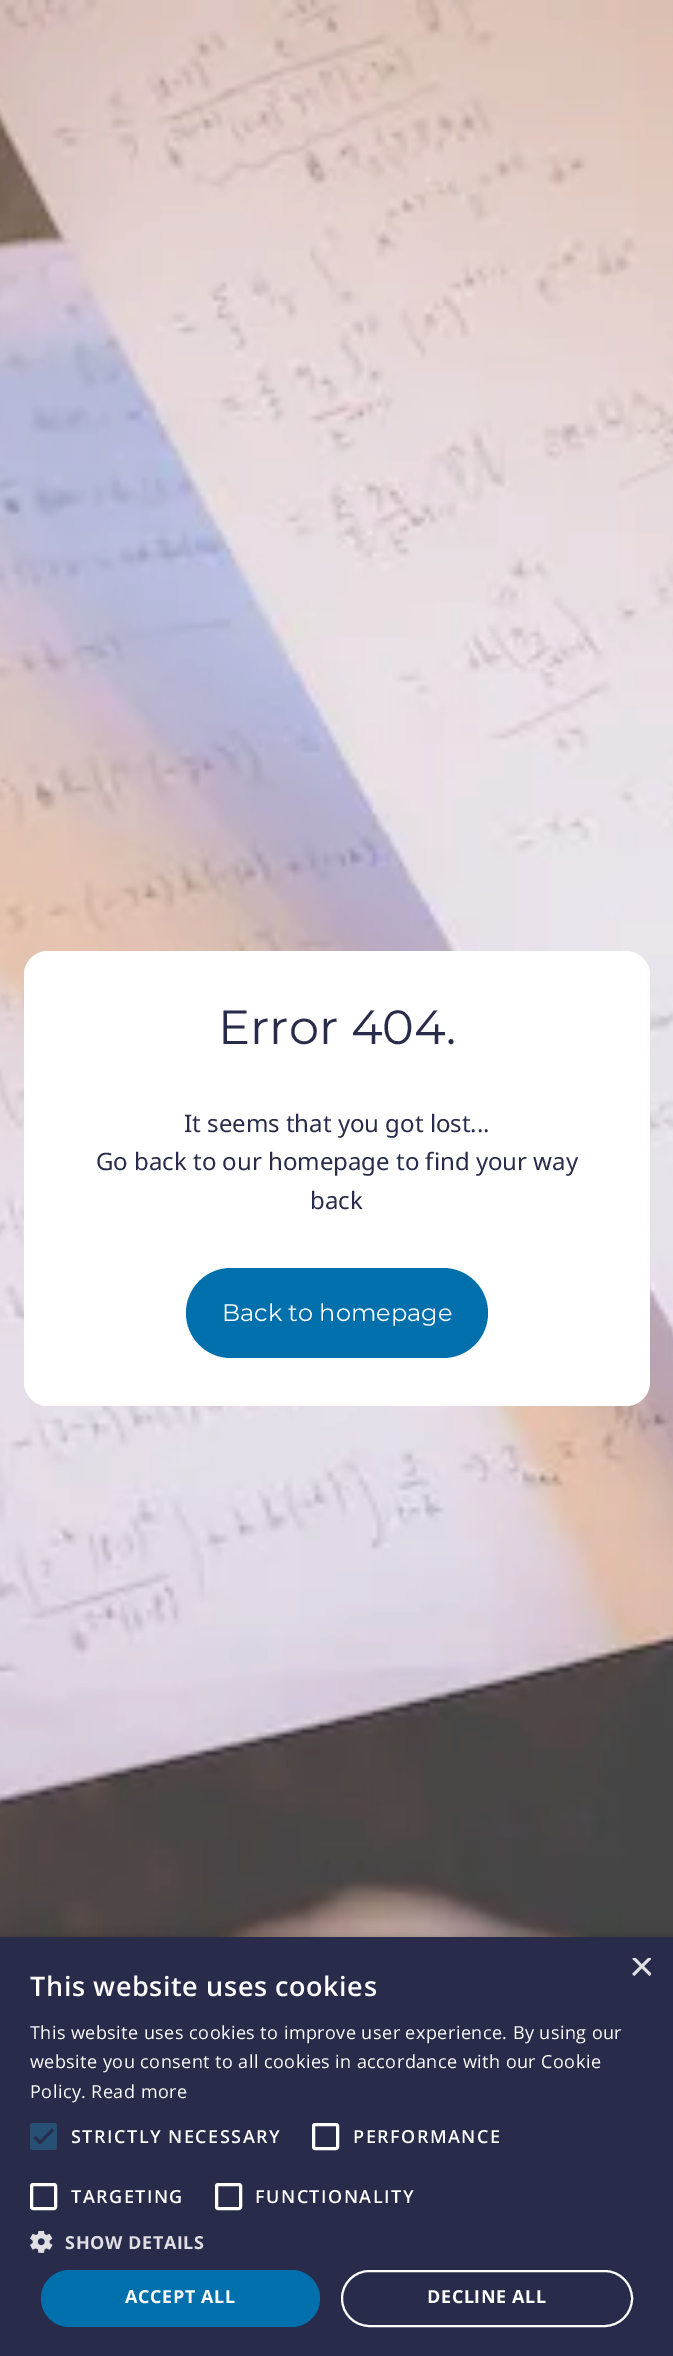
%!PS
<< /PageSize [673 2356] /PageUsesTransparency true >> setpagedevice
/rgb { 3 { 255 div 3 1 roll } repeat setrgbcolor } def
/font { [ exch dup neg 0 0 3 -1 roll 0 0 ] selectfont } def
/alpha { dup .setfillconstantalpha .setstrokeconstantalpha } def
/roundrect { 5 dict begin { /r /h /w /y /x } { exch def } forall
  x r add y moveto x w add y 2 copy h add r arct x w add y h add x 1 index r arct
  x y h add x y r arct x y 2 copy exch w add exch r arct closepath end } def
/shadow { 12 dict begin { /a /b /q /h /w /y /x } { exch def } forall gsave /was 0 def
  9 -2 -9 { dup b mul 4 div /e exch def 1 sub .425 mul 2.718 exch exp 1 add a .99 .min exch div /now exch def
    1 1 now sub 1 was sub div sub alpha /was now def
    w h .min e 2 mul add 0 gt { x e sub y e sub w e 2 mul add h e 2 mul add
      q e add b .6 mul add w h .min 2 div e add .min 0 .max roundrect fill } if } for grestore end } def
/picture { 5 dict begin { /h /w /y /x /name } { exch def } forall
  gsave x y translate w h scale
  w h 8 [w 0 0 h 0 0] name (r) file false 3 colorimage grestore end } def
0 .pushpdf14devicefilter
0 2356 translate 1 -1 scale
4 setmiterlimit
255 255 255 rgb
0 0 673 2356 rectfill
(img/1.rgb) 0 0 673 1937 picture
24 951 626 455 24 roundrect fill
0 112 173 rgb
186 1268 302 90 45 roundrect fill
0 0 0 rgb
2 1940 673 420 0 6 0.35 shadow
41 43 74 rgb
0 1937 673 419 rectfill
39 80 117 rgb
30 2123 27 27 3 roundrect fill
41 43 74 rgb
2.7 setlinewidth
34.5 2137 moveto 40 2142.5 lineto 53 2129.5 lineto stroke
255 255 255 rgb
3 setlinewidth
313.5 2124.5 24 24 1.5 roundrect stroke
31.5 2184.5 24 24 1.5 roundrect stroke
216.5 2184.5 24 24 1.5 roundrect stroke
(img/2.rgb) 30 2231 23 22 picture
0 112 173 rgb
41 2270 279 57 28.5 roundrect fill
255 255 255 rgb
2 setlinewidth
342 2271 290 55 27.5 roundrect stroke
/Montserrat-Regular 48 font
41 43 74 rgb
218 1044 moveto (Error 404.) show
/NotoSans-Regular 24 font
[
  [(It seems that you got lost...) 184 1132]
  [(Go back to our homepage to find your way) 96 1170]
  [(back) 310 1209]
] { aload pop moveto show } forall
/Montserrat-Regular 24 font
255 255 255 rgb
222 1321 moveto (Back to homepage) show
gsave
629 1958 22 22 rectclip
/LiberationSans-Regular 44 font
223 223 228 rgb
629 1981 moveto (×) show
grestore
/OpenSans-SemiBold 27 font
30 1996 moveto 0.6 0 (This website uses cookies) ashow
/OpenSans-Regular 18 font
30 2039 moveto 0.45 0 (This website uses cookies to improve user experience. By using our) ashow
30 2068 moveto 0.45 0 (website you consent to all cookies in accordance with our Cookie) ashow
30 2098 moveto 0.45 0 (Policy. Read more) ashow
/OpenSans-SemiBold 18 font
71 2143 moveto 1.5 0 (STRICTLY NECESSARY) ashow
353 2143 moveto 1.5 0 (PERFORMANCE) ashow
71 2203 moveto 1.5 0 (TARGETING) ashow
255 2203 moveto 1.5 0 (FUNCTIONALITY) ashow
/OpenSans-Bold 18 font
223 223 228 rgb
65 2249 moveto 0.6 0 (SHOW DETAILS) ashow
255 255 255 rgb
125 2303 moveto 0.6 0 (ACCEPT ALL) ashow
427 2303 moveto 0.6 0 (DECLINE ALL) ashow
.poppdf14devicefilter showpage
